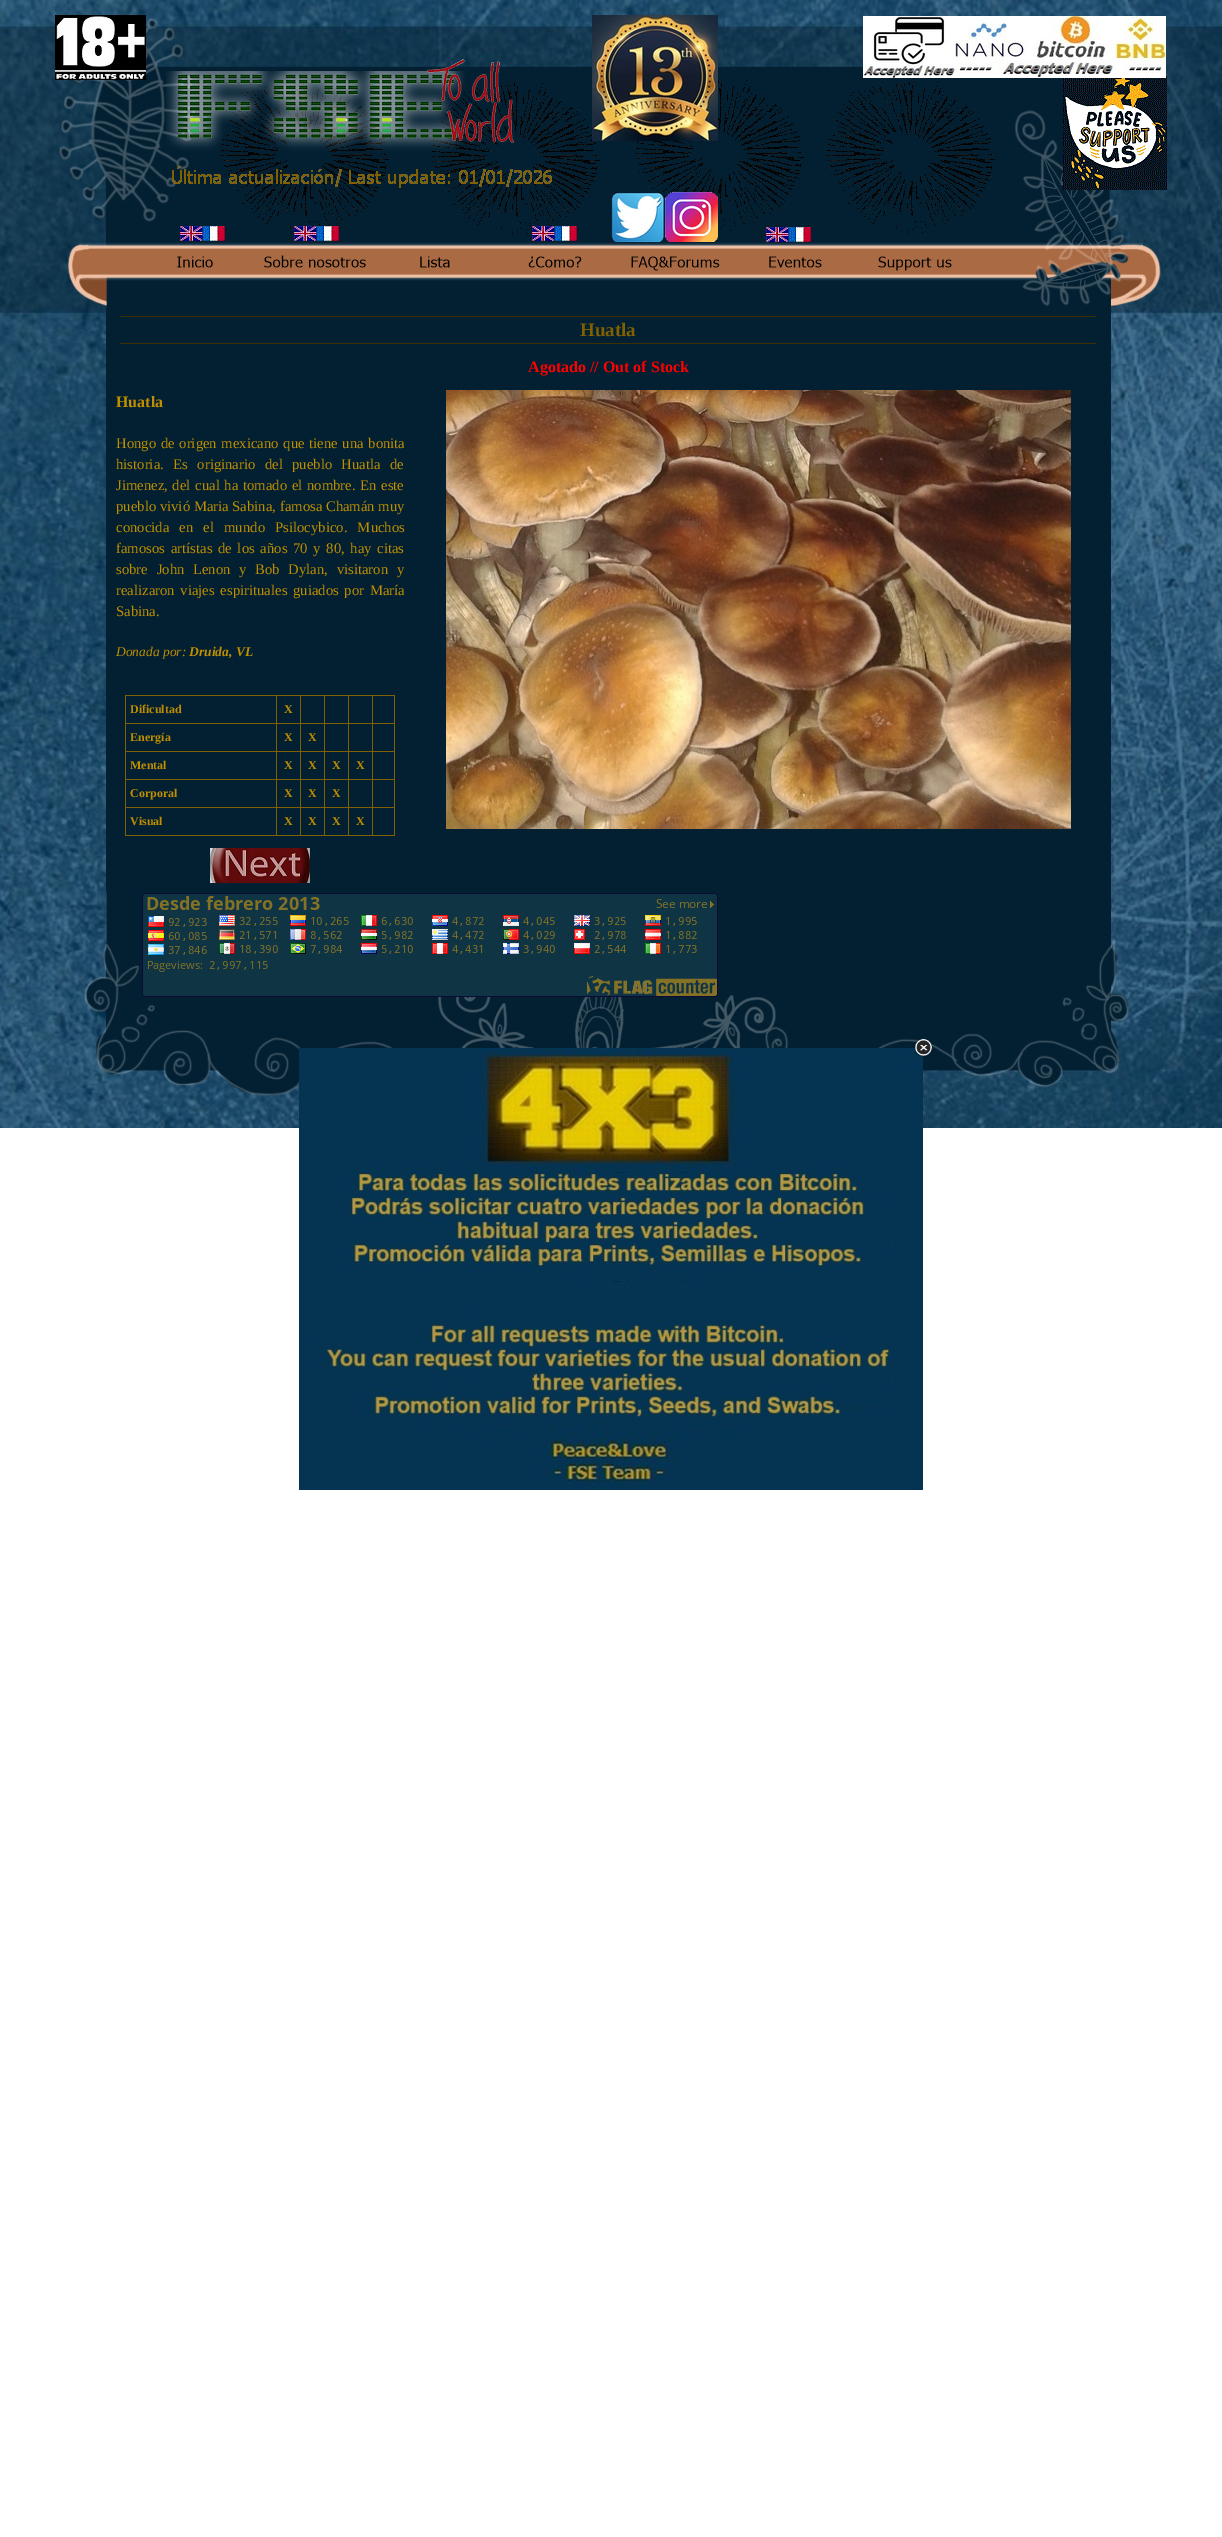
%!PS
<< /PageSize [1222 2537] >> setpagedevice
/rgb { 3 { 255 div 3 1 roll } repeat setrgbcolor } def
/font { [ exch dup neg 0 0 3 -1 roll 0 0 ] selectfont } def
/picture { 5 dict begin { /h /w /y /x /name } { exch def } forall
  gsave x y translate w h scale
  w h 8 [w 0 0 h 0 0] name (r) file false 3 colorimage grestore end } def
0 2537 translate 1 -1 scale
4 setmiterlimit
255 255 255 rgb
0 0 1222 2537 rectfill
(img/1.rgb) 0 0 1222 1128 picture
(img/2.rgb) 55 15 1112 227 picture
(img/3.rgb) 67 242 1094 66 picture
(img/4.rgb) 177 256 36 12 picture
(img/5.rgb) 264 255 102 13 picture
(img/6.rgb) 420 256 30 12 picture
(img/7.rgb) 528 256 54 12 picture
(img/8.rgb) 631 256 89 15 picture
(img/9.rgb) 769 256 53 12 picture
(img/10.rgb) 878 256 74 15 picture
[
  [106 308 1005 584 3 32 50]
  [120 316 976 1 64 48 0]
  [120 343 976 1 64 48 0]
  [372 695 23 1 128 96 0]
  [372 723 23 1 128 96 0]
  [372 751 23 1 128 96 0]
  [372 779 23 1 128 96 0]
  [372 807 23 1 128 96 0]
  [394 807 1 29 128 96 0]
  [372 835 23 1 128 96 0]
  [372 807 1 29 128 96 0]
  [348 807 25 1 128 96 0]
  [372 779 1 29 128 96 0]
  [348 779 25 1 128 96 0]
  [372 751 1 29 128 96 0]
  [348 751 25 1 128 96 0]
  [372 723 1 29 128 96 0]
  [348 723 25 1 128 96 0]
  [372 695 1 29 128 96 0]
  [348 695 25 1 128 96 0]
  [348 835 25 1 128 96 0]
  [348 807 1 29 128 96 0]
  [324 807 25 1 128 96 0]
  [348 779 1 29 128 96 0]
  [324 779 25 1 128 96 0]
  [348 751 1 29 128 96 0]
  [324 751 25 1 128 96 0]
  [348 723 1 29 128 96 0]
  [324 723 25 1 128 96 0]
  [348 695 1 29 128 96 0]
  [324 695 25 1 128 96 0]
  [324 835 25 1 128 96 0]
  [324 807 1 29 128 96 0]
  [300 807 25 1 128 96 0]
  [324 779 1 29 128 96 0]
  [300 779 25 1 128 96 0]
  [324 751 1 29 128 96 0]
  [300 751 25 1 128 96 0]
  [324 723 1 29 128 96 0]
  [300 723 25 1 128 96 0]
  [324 695 1 29 128 96 0]
  [300 695 25 1 128 96 0]
  [300 835 25 1 128 96 0]
  [300 807 1 29 128 96 0]
  [276 807 25 1 128 96 0]
  [300 779 1 29 128 96 0]
  [276 779 25 1 128 96 0]
  [300 751 1 29 128 96 0]
  [276 751 25 1 128 96 0]
  [300 723 1 29 128 96 0]
  [276 723 25 1 128 96 0]
  [300 695 1 29 128 96 0]
  [276 695 25 1 128 96 0]
  [276 835 25 1 128 96 0]
  [276 807 1 29 128 96 0]
  [125 807 152 1 128 96 0]
  [276 779 1 29 128 96 0]
  [125 779 152 1 128 96 0]
  [276 751 1 29 128 96 0]
  [125 751 152 1 128 96 0]
  [276 723 1 29 128 96 0]
  [125 723 152 1 128 96 0]
  [276 695 1 29 128 96 0]
  [125 695 152 1 128 96 0]
  [125 835 152 1 128 96 0]
  [125 807 1 29 128 96 0]
  [125 779 1 29 128 96 0]
  [125 751 1 29 128 96 0]
  [125 723 1 29 128 96 0]
  [125 695 1 29 128 96 0]
  [394 779 1 29 128 96 0]
  [394 751 1 29 128 96 0]
  [394 723 1 29 128 96 0]
  [394 695 1 29 128 96 0]
] { aload pop rgb rectfill } forall
(img/11.rgb) 210 848 100 35 picture
(img/12.rgb) 446 390 625 439 picture
(img/13.rgb) 84 892 1045 204 picture
(img/14.rgb) 142 893 576 104 picture
(img/16.rgb) 299 1048 624 442 picture
(img/15.rgb) 914 1038 18 19 picture
/LiberationSerif-Bold 19 font
580 336 moveto (Huatla) show
/LiberationSerif-Bold 16 font
255 0 0 rgb
528 372 moveto (Agotado // Out of Stock) show
191 143 0 rgb
116 407 moveto (Huatla) show
/LiberationSerif-Regular 14.7 font
116 448 moveto 1 0 32 (Hongo de origen mexicano que tiene una bonita) widthshow
116 469 moveto 5.75 0 32 (historia. Es originario del pueblo Huatla de) widthshow
116 490 moveto 1 0 32 (Jimenez, del cual ha tomado el nombre. En este) widthshow
116 511 moveto (pueblo vivió Maria Sabina, famosa Chamán muy) show
116 532 moveto 6.5 0 32 (conocida en el mundo Psilocybico. Muchos) widthshow
116 553 moveto 2 0 32 (famosos artístas de los años 70 y 80, hay citas) widthshow
116 574 moveto 5 0 32 (sobre John Lenon y Bob Dylan, visitaron y) widthshow
116 595 moveto 2 0 32 (realizaron viajes espirituales guiados por María) widthshow
116 616 moveto (Sabina.) show
/LiberationSerif-Italic 13.5 font
116 656 moveto (Donada por:) show
/LiberationSerif-BoldItalic 13.5 font
189 656 moveto (Druida, VL) show
/LiberationSerif-Bold 12 font
[
  [(Dificultad) 130 713]
  [(X) 284 713]
  [(Energía) 130 741]
  [(X) 284 741]
  [(X) 308 741]
  [(Mental) 130 769]
  [(X) 284 769]
  [(X) 308 769]
  [(X) 332 769]
  [(X) 356 769]
  [(Corporal) 130 797]
  [(X) 284 797]
  [(X) 308 797]
  [(X) 332 797]
  [(Visual) 130 825]
  [(X) 284 825]
  [(X) 308 825]
  [(X) 332 825]
  [(X) 356 825]
] { aload pop moveto show } forall
showpage
